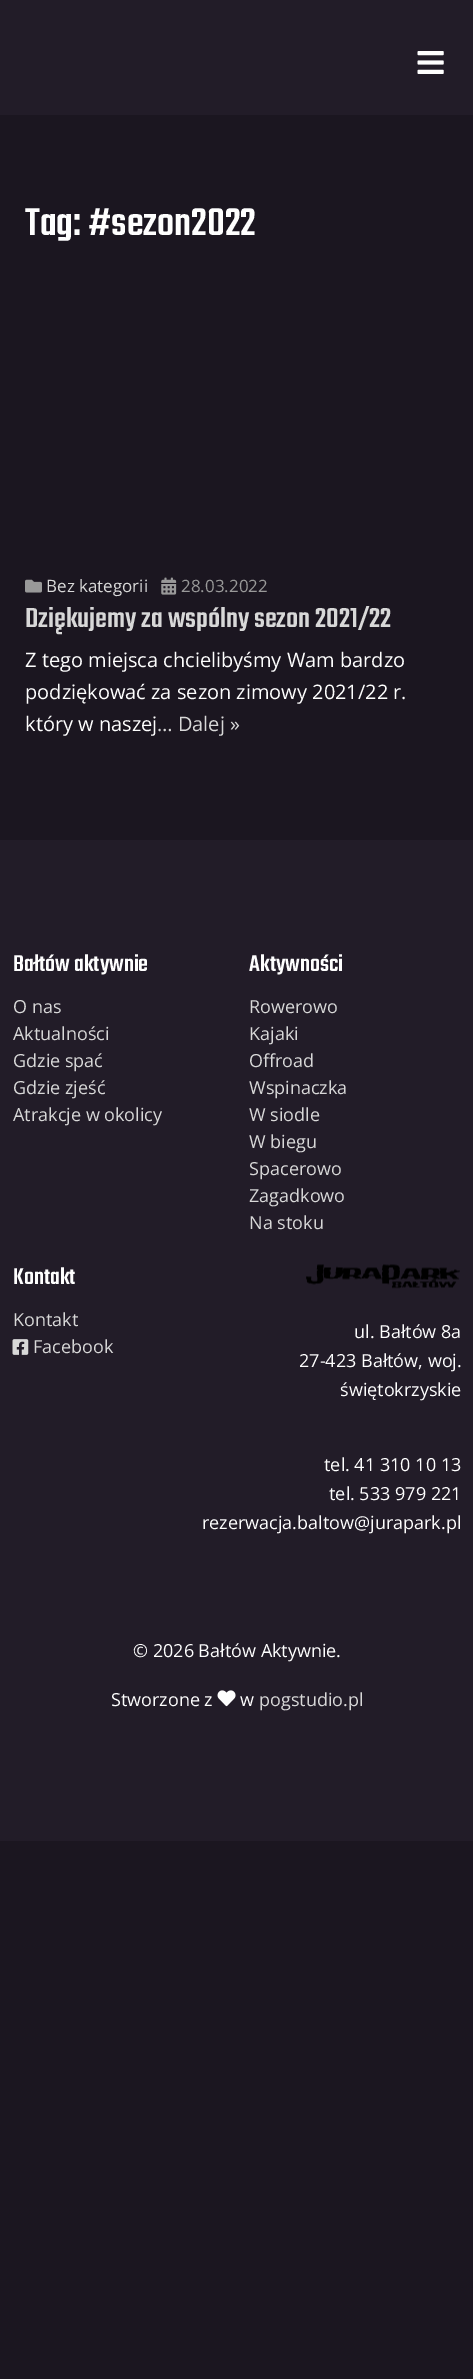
%!PS
<< /PageSize [473 2379] >> setpagedevice
/rgb { 3 { 255 div 3 1 roll } repeat setrgbcolor } def
/font { [ exch dup neg 0 0 3 -1 roll 0 0 ] selectfont } def
/picture { 5 dict begin { /h /w /y /x /name } { exch def } forall
  gsave x y translate w h scale
  w h 8 [w 0 0 h 0 0] name (r) file false 3 colorimage grestore end } def
0 2379 translate 1 -1 scale
4 setmiterlimit
27 22 32 rgb
0 0 473 2379 rectfill
34 28 40 rgb
0 0 473 115 rectfill
(img/1.rgb) 417 51 27 23 picture
(img/2.rgb) 25 579 17 14 picture
(img/3.rgb) 161 577 16 18 picture
0 840 473 1001 rectfill
(img/4.rgb) 12 1339 17 16 picture
(img/5.rgb) 306 1264 154 25 picture
(img/6.rgb) 217 1690 19 17 picture
/Teko-Medium 42.5 font
254 254 254 rgb
25 235 moveto (Tag: #sezon2022) show
/OpenSans-Regular 17 font
216 216 216 rgb
46 592 moveto (Bez kategorii) show
153 153 153 rgb
181 592 moveto (28.03.2022) show
/Teko-Medium 30 font
216 216 216 rgb
25 627 moveto (Dziękujemy za wspólny sezon 2021/22) show
/OpenSans-Regular 20 font
254 254 254 rgb
[
  [(Z tego miejsca chcielibyśmy Wam bardzo) 25 667]
  [(podziękować za sezon zimowy 2021/22 r.) 25 699]
  [(który w naszej) 25 731]
] { aload pop moveto show } forall
216 216 216 rgb
157 731 moveto (… Dalej ») show
/Teko-Medium 25 font
254 254 254 rgb
13 971 moveto (Bałtów aktywnie) show
/OpenSans-Regular 18 font
216 216 216 rgb
[
  [(O nas) 13 1013]
  [(Aktualności) 13 1040]
  [(Gdzie spać) 13 1067]
  [(Gdzie zjeść) 13 1094]
  [(Atrakcje w okolicy) 13 1121]
] { aload pop moveto show } forall
/Teko-Medium 25 font
254 254 254 rgb
249 971 moveto (Aktywności) show
/OpenSans-Regular 18 font
216 216 216 rgb
[
  [(Rowerowo) 249 1013]
  [(Kajaki) 249 1040]
  [(Offroad) 249 1067]
  [(Wspinaczka) 249 1094]
  [(W siodle) 249 1121]
  [(W biegu) 249 1148]
  [(Spacerowo) 249 1175]
  [(Zagadkowo) 249 1202]
  [(Na stoku) 249 1229]
] { aload pop moveto show } forall
/Teko-Medium 25 font
254 254 254 rgb
13 1284 moveto (Kontakt) show
/OpenSans-Regular 18 font
216 216 216 rgb
13 1326 moveto (Kontakt) show
33 1353 moveto (Facebook) show
254 254 254 rgb
[
  [(ul. Bałtów 8a) 354 1338]
  [(27-423 Bałtów, woj.) 299 1367]
  [(świętokrzyskie) 340 1396]
  [(tel. 41 310 10 13) 324 1471]
  [(tel. 533 979 221) 329 1500]
  [(rezerwacja.baltow@jurapark.pl) 202 1529]
  [(© 2026 Bałtów Aktywnie.) 133 1657]
  [(Stworzone z) 111 1706]
  [(w) 240 1706]
] { aload pop moveto show } forall
216 216 216 rgb
259 1706 moveto (pogstudio.pl) show
showpage
